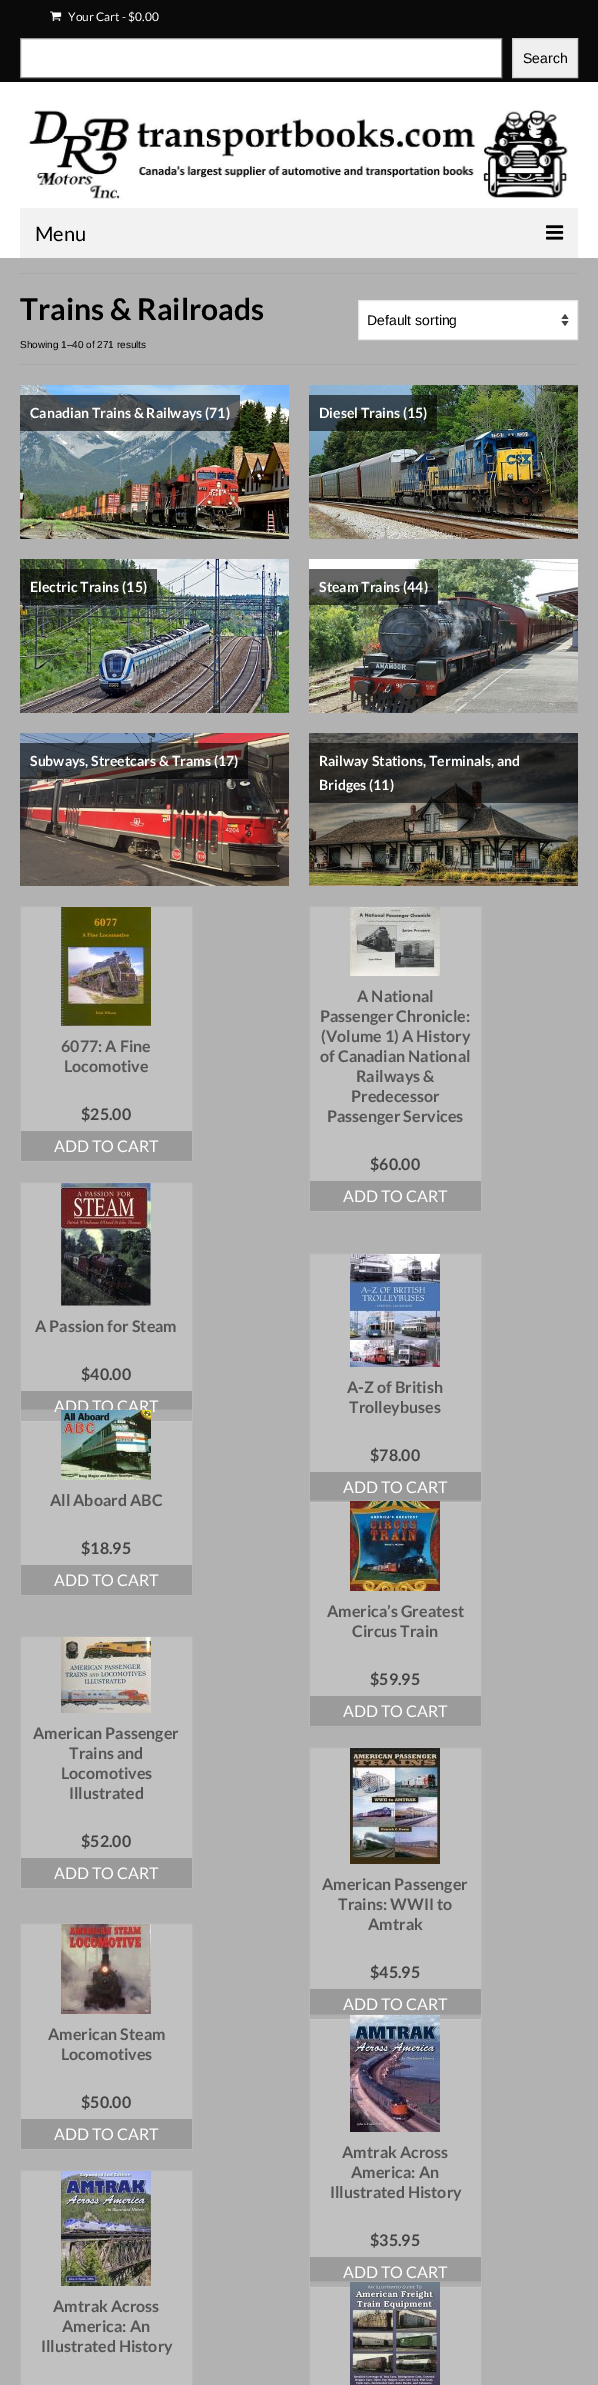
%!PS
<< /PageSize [598 2385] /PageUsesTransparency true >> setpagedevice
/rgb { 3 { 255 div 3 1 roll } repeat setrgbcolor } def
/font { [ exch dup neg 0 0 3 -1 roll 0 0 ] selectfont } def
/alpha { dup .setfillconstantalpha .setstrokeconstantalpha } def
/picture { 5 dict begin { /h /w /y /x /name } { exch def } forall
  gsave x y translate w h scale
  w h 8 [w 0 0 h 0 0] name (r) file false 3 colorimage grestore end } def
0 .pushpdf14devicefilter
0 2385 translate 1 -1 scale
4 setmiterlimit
255 255 255 rgb
0 0 598 2385 rectfill
10 10 10 rgb
0 0 598 82 rectfill
(img/1.rgb) 50 11 12 10 picture
255 255 255 rgb
20.5 38.5 moveto 501.5 38.5 lineto 501.5 77.5 lineto 20.5 77.5 lineto closepath gsave fill grestore
148 148 148 rgb
stroke
239 239 239 rgb
512.5 38.5 moveto 577.5 38.5 lineto 577.5 77.5 lineto 512.5 77.5 lineto closepath gsave fill grestore
204 204 204 rgb
stroke
(img/2.rgb) 28 110 540 90 picture
242 242 242 rgb
20 208 558 50 rectfill
(img/3.rgb) 546 225 18 15 picture
[
  [0 258 598 2127 178 178 178]
  [20 273 558 1 169 169 169]
  [20 364 558 1 169 169 169]
  [359 301 218 38 255 255 255]
] { aload pop rgb rectfill } forall
68 68 68 rgb
561.5 319 moveto 565 314 lineto 568.5 319 lineto closepath 568.5 321 moveto 565 326 lineto 561.5 321 lineto closepath fill
230 230 230 rgb
358.5 300.5 219 39 rectstroke
(img/4.rgb) 20 385 269 154 picture
0.6 alpha
0 0 0 rgb
20 395 220 36 rectfill
1 alpha
(img/5.rgb) 309 385 269 154 picture
0.6 alpha
309 395 128 36 rectfill
1 alpha
(img/6.rgb) 20 559 269 154 picture
0.6 alpha
20 569 137 36 rectfill
1 alpha
(img/7.rgb) 309 559 269 154 picture
0.6 alpha
309 569 129 36 rectfill
1 alpha
(img/8.rgb) 20 733 269 153 picture
0.6 alpha
20 743 228 36 rectfill
1 alpha
(img/9.rgb) 309 733 269 153 picture
0.6 alpha
309 743 269 60 rectfill
1 alpha
193 193 193 rgb
21 907 171 224 rectfill
183 183 183 rgb
20.5 906.5 172 255 rectstroke
(img/10.rgb) 61 907 90 119 picture
154 154 154 rgb
21 1131 171 30 rectfill
193 193 193 rgb
310 907 171 274 rectfill
183 183 183 rgb
309.5 906.5 172 305 rectstroke
(img/11.rgb) 350 907 90 69 picture
154 154 154 rgb
310 1181 171 30 rectfill
193 193 193 rgb
21 1183 171 208 rectfill
183 183 183 rgb
20.5 1182.5 172 239 rectstroke
(img/12.rgb) 61 1183 90 123 picture
154 154 154 rgb
21 1391 171 30 rectfill
193 193 193 rgb
310 1254 171 218 rectfill
183 183 183 rgb
309.5 1253.5 172 249 rectstroke
(img/13.rgb) 350 1254 90 113 picture
154 154 154 rgb
310 1472 171 30 rectfill
0.2 alpha
255 255 255 rgb
309 1500 173 227 rectfill
0.05 alpha
0 0 0 rgb
309.5 1500.5 172 226 rectstroke
1 alpha
(img/15.rgb) 350 1501 90 90 picture
155 155 155 rgb
310 1696 171 30 rectfill
193 193 193 rgb
21 1637 171 221 rectfill
183 183 183 rgb
20.5 1636.5 172 252 rectstroke
(img/16.rgb) 61 1637 90 76 picture
154 154 154 rgb
21 1858 171 30 rectfill
193 193 193 rgb
310 1748 171 241 rectfill
183 183 183 rgb
309.5 1747.5 172 272 rectstroke
(img/17.rgb) 350 1748 90 116 picture
154 154 154 rgb
310 1989 171 30 rectfill
193 193 193 rgb
21 1924 171 195 rectfill
183 183 183 rgb
20.5 1923.5 172 226 rectstroke
(img/18.rgb) 61 1924 90 90 picture
154 154 154 rgb
21 2119 171 30 rectfill
0.2 alpha
255 255 255 rgb
309 2014 173 274 rectfill
0.05 alpha
0 0 0 rgb
309.5 2014.5 172 273 rectstroke
1 alpha
(img/19.rgb) 350 2015 90 117 picture
155 155 155 rgb
310 2257 171 30 rectfill
193 193 193 rgb
20.5 2170.5 moveto 192.5 2170.5 lineto 192.5 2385.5 lineto 20.5 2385.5 lineto closepath gsave fill grestore
183 183 183 rgb
stroke
(img/20.rgb) 61 2171 90 115 picture
0.2 alpha
255 255 255 rgb
309 2281 173 104 rectfill
0.05 alpha
0 0 0 rgb
309.5 2281.5 172 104 rectstroke
1 alpha
(img/21.rgb) 350 2282 90 103 picture
/Lato-Regular 12 font
255 255 255 rgb
68 21 moveto (Your Cart - $0.00) show
/LiberationSans-Regular 14 font
0 0 0 rgb
523 63 moveto (Search) show
/Lato-Regular 20 font
35 241 moveto (Menu) show
/Lato-Bold 30 font
20 320 moveto (Trains & Railroads) show
/LiberationSans-Regular 14 font
367 325 moveto (Default sorting) show
/LiberationSans-Regular 10 font
20 348 moveto (Showing 1–40 of 271 results) show
/Lato-Bold 14 font
255 255 255 rgb
[
  [(Canadian Trains & Railways \(71\)) 30 418]
  [(Diesel Trains \(15\)) 319 418]
  [(Electric Trains \(15\)) 30 592]
  [(Steam Trains \(44\)) 319 592]
  [(Subways, Streetcars & Trams \(17\)) 30 766]
  [(Railway Stations, Terminals, and) 319 766]
  [(Bridges \(11\)) 319 790]
] { aload pop moveto show } forall
/Lato-Bold 16 font
85 85 85 rgb
61 1052 moveto (6077: A Fine) show
64 1072 moveto (Locomotive) show
68 68 68 rgb
81 1120 moveto ($25.00) show
/Lato-Regular 16 font
255 255 255 rgb
54 1152 moveto (ADD TO CART) show
/Lato-Bold 16 font
85 85 85 rgb
[
  [(A National) 357 1002]
  [(Passenger Chronicle:) 320 1022]
  [(\(Volume 1\) A History) 321 1042]
  [(of Canadian National) 320 1062]
  [(Railways &) 356 1082]
  [(Predecessor) 351 1102]
  [(Passenger Services) 327 1122]
] { aload pop moveto show } forall
68 68 68 rgb
370 1170 moveto ($60.00) show
/Lato-Regular 16 font
255 255 255 rgb
343 1202 moveto (ADD TO CART) show
/Lato-Bold 16 font
85 85 85 rgb
35 1332 moveto (A Passion for Steam) show
68 68 68 rgb
81 1380 moveto ($40.00) show
/Lato-Regular 16 font
255 255 255 rgb
54 1412 moveto (ADD TO CART) show
/Lato-Bold 16 font
85 85 85 rgb
347 1393 moveto (A-Z of British) show
349 1413 moveto (Trolleybuses) show
68 68 68 rgb
370 1461 moveto ($78.00) show
/Lato-Regular 16 font
255 255 255 rgb
343 1493 moveto (ADD TO CART) show
0.2 alpha
20 1409 173 187 rectfill
0.05 alpha
0 0 0 rgb
20.5 1409.5 172 186 rectstroke
1 alpha
(img/14.rgb) 61 1410 90 70 picture
/Lato-Bold 16 font
85 85 85 rgb
50 1506 moveto (All Aboard ABC) show
68 68 68 rgb
81 1554 moveto ($18.95) show
155 155 155 rgb
21 1565 171 30 rectfill
/Lato-Regular 16 font
255 255 255 rgb
54 1586 moveto (ADD TO CART) show
/Lato-Bold 16 font
85 85 85 rgb
327 1617 moveto (America’s Greatest) show
352 1637 moveto (Circus Train) show
68 68 68 rgb
370 1685 moveto ($59.95) show
/Lato-Regular 16 font
255 255 255 rgb
343 1717 moveto (ADD TO CART) show
/Lato-Bold 16 font
85 85 85 rgb
[
  [(American Passenger) 33 1739]
  [(Trains and) 69 1759]
  [(Locomotives) 61 1779]
  [(Illustrated) 69 1799]
] { aload pop moveto show } forall
68 68 68 rgb
81 1847 moveto ($52.00) show
/Lato-Regular 16 font
255 255 255 rgb
54 1879 moveto (ADD TO CART) show
/Lato-Bold 16 font
85 85 85 rgb
[
  [(American Passenger) 322 1890]
  [(Trains: WWII to) 338 1910]
  [(Amtrak) 368 1930]
] { aload pop moveto show } forall
68 68 68 rgb
370 1978 moveto ($45.95) show
/Lato-Regular 16 font
255 255 255 rgb
343 2010 moveto (ADD TO CART) show
/Lato-Bold 16 font
85 85 85 rgb
48 2040 moveto (American Steam) show
61 2060 moveto (Locomotives) show
68 68 68 rgb
81 2108 moveto ($50.00) show
/Lato-Regular 16 font
255 255 255 rgb
54 2140 moveto (ADD TO CART) show
/Lato-Bold 16 font
85 85 85 rgb
[
  [(Amtrak Across) 342 2158]
  [(America: An) 351 2178]
  [(Illustrated History) 330 2198]
] { aload pop moveto show } forall
68 68 68 rgb
370 2246 moveto ($35.95) show
/Lato-Regular 16 font
255 255 255 rgb
343 2278 moveto (ADD TO CART) show
/Lato-Bold 16 font
85 85 85 rgb
[
  [(Amtrak Across) 53 2312]
  [(America: An) 62 2332]
  [(Illustrated History) 41 2352]
] { aload pop moveto show } forall
.poppdf14devicefilter showpage
